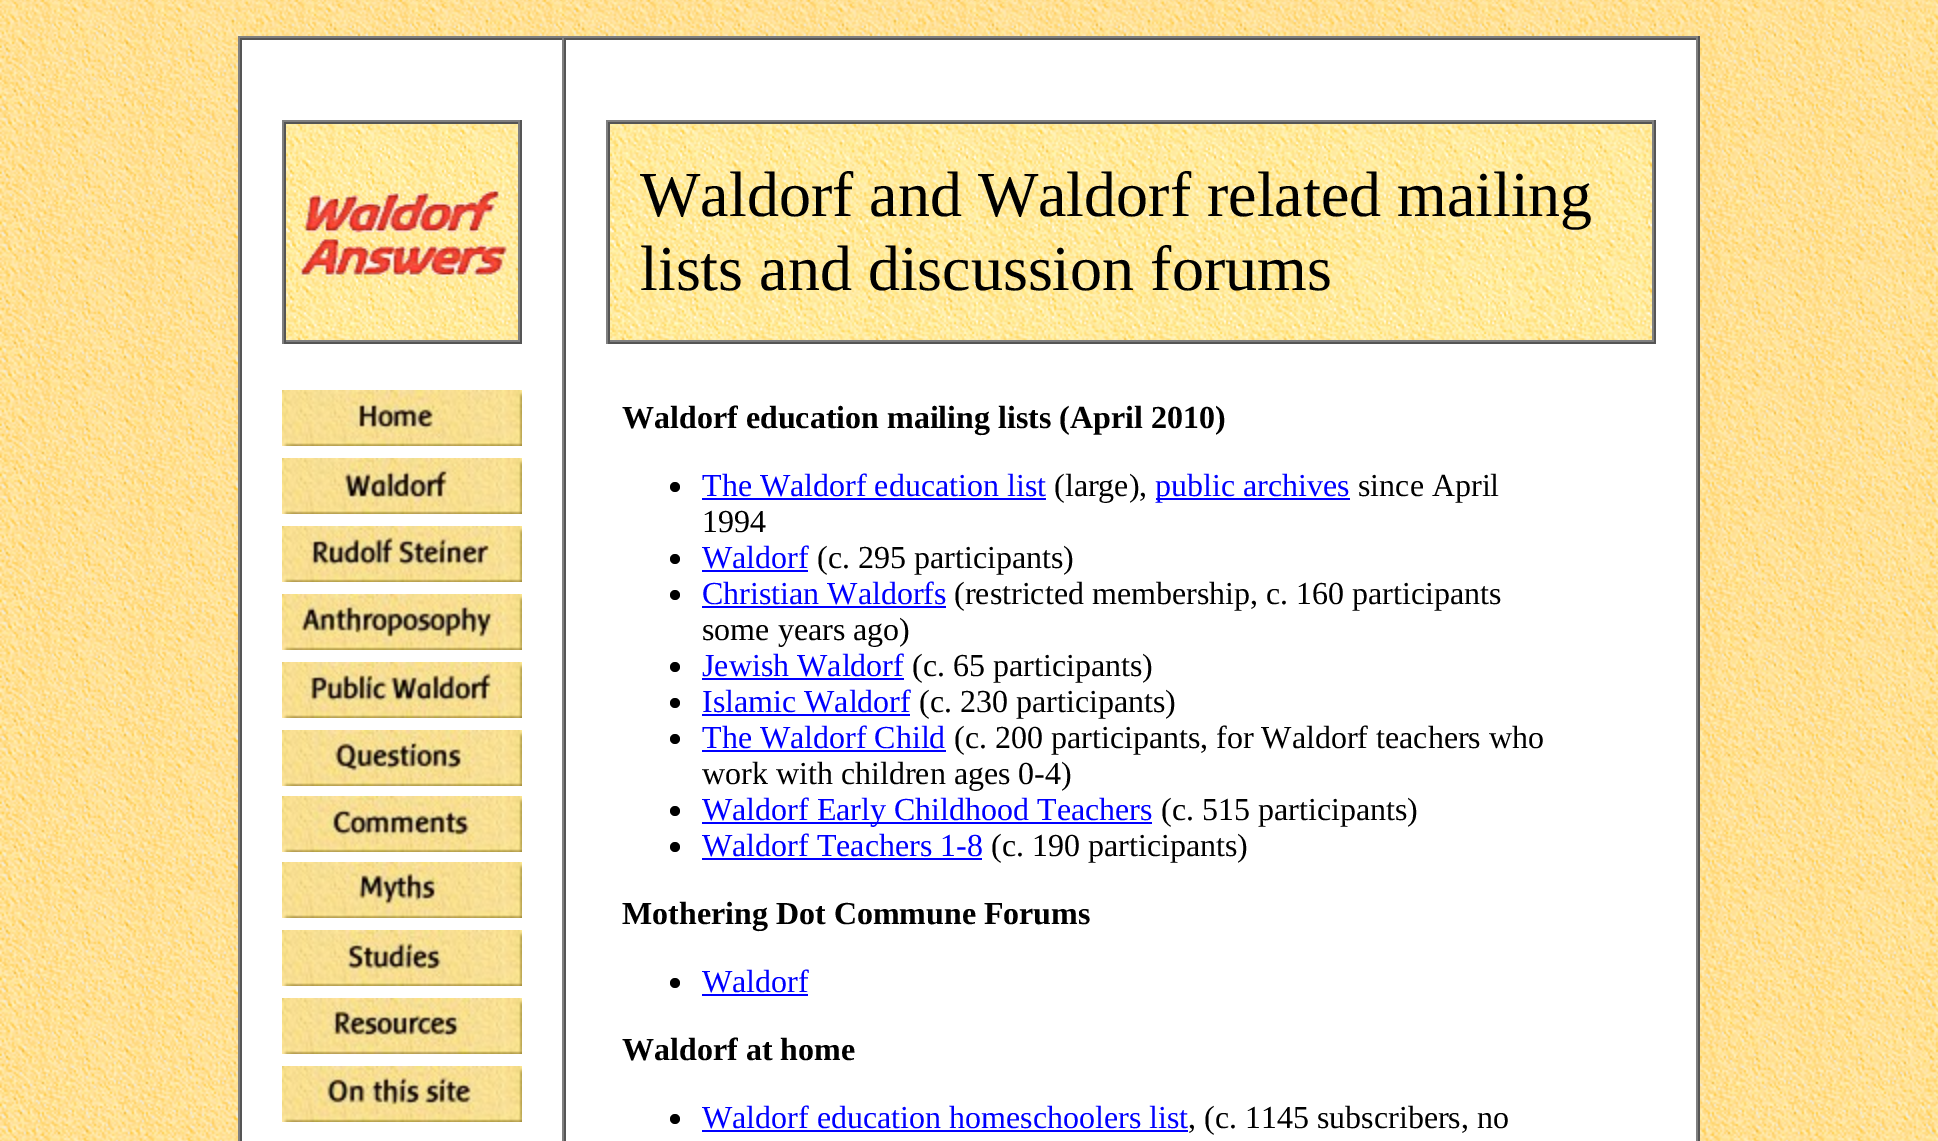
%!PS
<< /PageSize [1938 1141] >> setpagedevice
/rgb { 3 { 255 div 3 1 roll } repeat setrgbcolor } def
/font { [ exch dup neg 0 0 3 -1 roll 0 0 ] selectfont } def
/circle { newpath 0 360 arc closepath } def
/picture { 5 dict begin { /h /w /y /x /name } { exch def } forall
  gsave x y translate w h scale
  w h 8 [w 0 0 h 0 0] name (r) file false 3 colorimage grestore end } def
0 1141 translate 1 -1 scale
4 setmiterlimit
255 255 255 rgb
0 0 1938 1141 rectfill
(img/1.rgb) 0 0 1938 1141 picture
[
  [242 40 1454 1101 255 255 255]
  [238 36 1462 2 128 128 128]
  [1698 36 2 1105 85 85 85]
  [238 36 2 1105 128 128 128]
  [240 38 1458 2 85 85 85]
  [562 38 2 1103 128 128 128]
  [240 38 2 1103 85 85 85]
] { aload pop rgb rectfill } forall
(img/2.rgb) 286 124 232 216 picture
[
  [282 120 240 2 128 128 128]
  [520 120 2 224 85 85 85]
  [282 342 240 2 85 85 85]
  [282 120 2 224 128 128 128]
  [284 122 236 2 85 85 85]
  [518 122 2 220 128 128 128]
  [284 340 236 2 128 128 128]
  [284 122 2 220 85 85 85]
] { aload pop rgb rectfill } forall
(img/3.rgb) 299 189 208 88 picture
(img/4.rgb) 282 390 240 56 picture
(img/5.rgb) 282 458 240 56 picture
(img/6.rgb) 282 526 240 56 picture
(img/7.rgb) 282 594 240 56 picture
(img/8.rgb) 282 662 240 56 picture
(img/9.rgb) 282 730 240 56 picture
(img/10.rgb) 282 796 240 56 picture
(img/11.rgb) 282 862 240 56 picture
(img/12.rgb) 282 930 240 56 picture
(img/13.rgb) 282 998 240 56 picture
(img/14.rgb) 282 1066 240 56 picture
128 128 128 rgb
1696 38 2 1103 rectfill
85 85 85 rgb
564 38 2 1103 rectfill
(img/15.rgb) 610 124 1042 216 picture
[
  [606 120 1050 2 128 128 128]
  [1654 120 2 224 85 85 85]
  [606 342 1050 2 85 85 85]
  [606 120 2 224 128 128 128]
  [608 122 1046 2 85 85 85]
  [1652 122 2 220 128 128 128]
  [608 340 1046 2 128 128 128]
  [608 122 2 220 85 85 85]
] { aload pop rgb rectfill } forall
0 0 0 rgb
675 487 5 circle fill
0 0 255 rgb
702 498 344 2 rectfill
1156 498 194 2 rectfill
0 0 0 rgb
675 559 5 circle fill
0 0 255 rgb
702 570 106 2 rectfill
0 0 0 rgb
675 595 5 circle fill
0 0 255 rgb
702 606 244 2 rectfill
0 0 0 rgb
675 667 5 circle fill
0 0 255 rgb
702 678 202 2 rectfill
0 0 0 rgb
675 703 5 circle fill
0 0 255 rgb
702 714 208 2 rectfill
0 0 0 rgb
675 739 5 circle fill
0 0 255 rgb
702 750 244 2 rectfill
0 0 0 rgb
675 811 5 circle fill
0 0 255 rgb
702 822 450 2 rectfill
0 0 0 rgb
675 847 5 circle fill
0 0 255 rgb
702 858 280 2 rectfill
0 0 0 rgb
675 983 5 circle fill
0 0 255 rgb
702 994 106 2 rectfill
0 0 0 rgb
675 1119 5 circle fill
0 0 255 rgb
702 1130 486 2 rectfill
/LiberationSerif-Regular 64 font
0 0 0 rgb
640 216 moveto (Waldorf and Waldorf related mailing) show
640 290 moveto (lists and discussion forums) show
/LiberationSerif-Bold 32 font
622 428 moveto (Waldorf education mailing lists \(April 2010\)) show
/LiberationSerif-Regular 32 font
0 0 255 rgb
702 496 moveto (The Waldorf education list) show
0 0 0 rgb
1054 496 moveto (\(large\),) show
0 0 255 rgb
1155 496 moveto (public archives) show
0 0 0 rgb
1358 496 moveto (since April) show
702 532 moveto (1994) show
0 0 255 rgb
702 568 moveto (Waldorf) show
0 0 0 rgb
817 568 moveto (\(c. 295 participants\)) show
0 0 255 rgb
702 604 moveto (Christian Waldorfs) show
0 0 0 rgb
954 604 moveto (\(restricted membership, c. 160 participants) show
702 640 moveto (some years ago\)) show
0 0 255 rgb
702 676 moveto (Jewish Waldorf) show
0 0 0 rgb
912 676 moveto (\(c. 65 participants\)) show
0 0 255 rgb
702 712 moveto (Islamic Waldorf) show
0 0 0 rgb
919 712 moveto (\(c. 230 participants\)) show
0 0 255 rgb
702 748 moveto (The Waldorf Child) show
0 0 0 rgb
954 748 moveto (\(c. 200 participants, for Waldorf teachers who) show
702 784 moveto (work with children ages 0-4\)) show
0 0 255 rgb
702 820 moveto (Waldorf Early Childhood Teachers) show
0 0 0 rgb
1161 820 moveto (\(c. 515 participants\)) show
0 0 255 rgb
702 856 moveto (Waldorf Teachers 1-8) show
0 0 0 rgb
991 856 moveto (\(c. 190 participants\)) show
/LiberationSerif-Bold 32 font
622 924 moveto (Mothering Dot Commune Forums) show
/LiberationSerif-Regular 32 font
0 0 255 rgb
702 992 moveto (Waldorf) show
/LiberationSerif-Bold 32 font
0 0 0 rgb
622 1060 moveto (Waldorf at home) show
/LiberationSerif-Regular 32 font
0 0 255 rgb
702 1128 moveto (Waldorf education homeschoolers list) show
0 0 0 rgb
1188 1128 moveto (, \(c. 1145 subscribers, no) show
showpage
